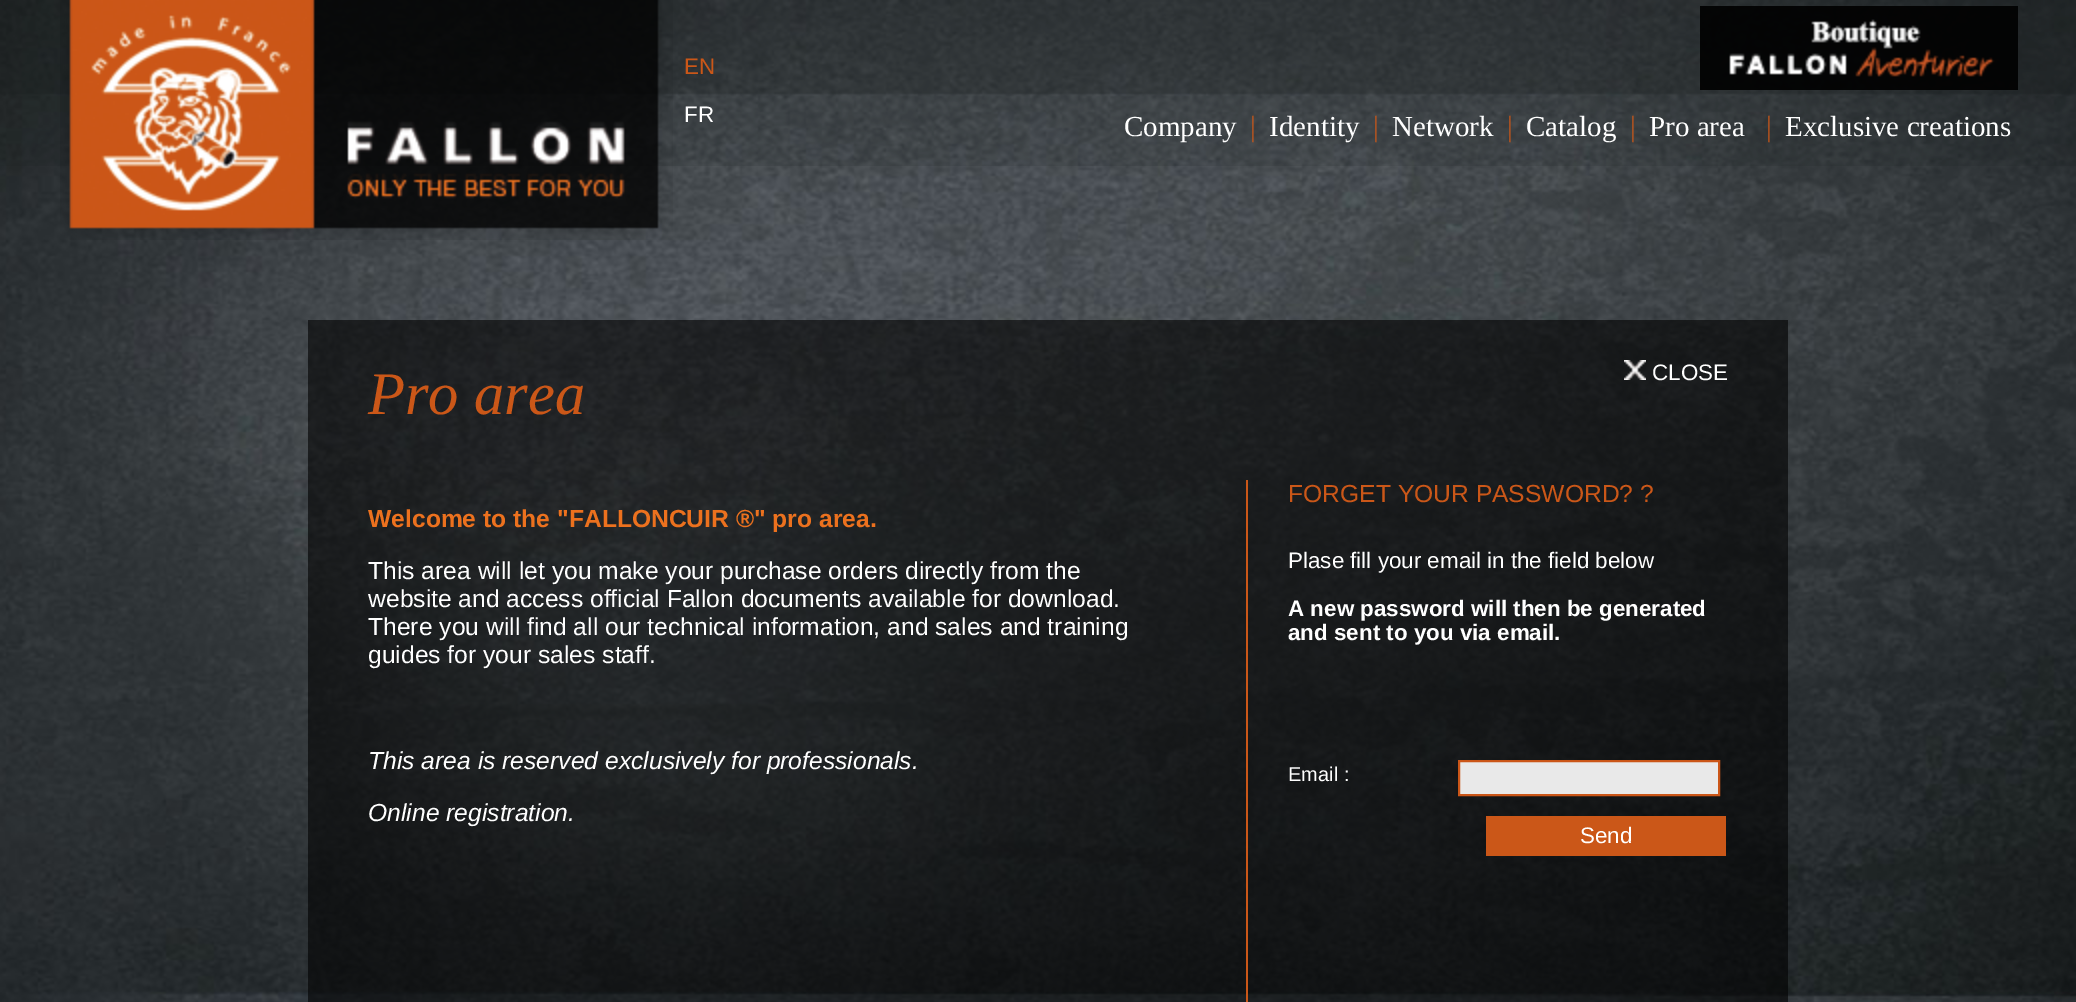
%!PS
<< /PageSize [2076 1002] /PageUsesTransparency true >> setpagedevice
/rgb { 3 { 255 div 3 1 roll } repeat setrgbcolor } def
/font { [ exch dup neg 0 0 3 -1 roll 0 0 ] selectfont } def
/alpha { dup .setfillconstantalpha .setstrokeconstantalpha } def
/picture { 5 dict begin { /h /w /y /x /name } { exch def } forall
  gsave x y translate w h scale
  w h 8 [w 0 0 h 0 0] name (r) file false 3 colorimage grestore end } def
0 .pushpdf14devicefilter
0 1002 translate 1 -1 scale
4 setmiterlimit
255 255 255 rgb
0 0 2076 1002 rectfill
(img/1.rgb) 0 0 2076 1002 picture
(img/2.rgb) 0 0 2076 166 picture
(img/3.rgb) 60 0 613 240 picture
(img/4.rgb) 1700 6 318 84 picture
0.6 alpha
0 0 0 rgb
308 320 1480 682 rectfill
1 alpha
(img/5.rgb) 1624 360 22 20 picture
203 87 24 rgb
1246 480 2 522 rectfill
233 233 233 rgb
1459 761 moveto 1719 761 lineto 1719 795 lineto 1459 795 lineto closepath gsave fill grestore
203 86 24 rgb
2 setlinewidth
stroke
203 87 24 rgb
1486 816 240 40 rectfill
/LiberationSans-Regular 22.4 font
684 74 moveto (EN) show
255 255 255 rgb
684 122 moveto (FR) show
/LiberationSerif-Regular 29 font
1124 136 moveto (Company) show
203 87 24 rgb
1250 136 moveto (|) show
255 255 255 rgb
1269 136 moveto (Identity) show
203 87 24 rgb
1373 136 moveto (|) show
255 255 255 rgb
1392 136 moveto (Network) show
203 87 24 rgb
1507 136 moveto (|) show
255 255 255 rgb
1526 136 moveto (Catalog) show
203 87 24 rgb
1630 136 moveto (|) show
255 255 255 rgb
1649 136 moveto (Pro area) show
203 87 24 rgb
1766 136 moveto (|) show
255 255 255 rgb
1785 136 moveto (Exclusive creations) show
/LiberationSerif-Italic 60.5 font
203 87 24 rgb
368 414 moveto (Pro area) show
/LiberationSans-Regular 22.4 font
255 255 255 rgb
1652 380 moveto (CLOSE) show
/LiberationSans-Bold 24.65 font
236 113 30 rgb
368 527 moveto (Welcome to the "FALLONCUIR ®" pro area.) show
/LiberationSans-Regular 24.65 font
255 255 255 rgb
[
  [(This area will let you make your purchase orders directly from the) 368 579]
  [(website and access official Fallon documents available for download.) 368 607]
  [(There you will find all our technical information, and sales and training) 368 635]
  [(guides for your sales staff.) 368 663]
] { aload pop moveto show } forall
/LiberationSans-Italic 24.65 font
368 769 moveto (This area is reserved exclusively for professionals.) show
368 821 moveto (Online registration.) show
/LiberationSans-Regular 24.65 font
203 87 24 rgb
1288 502 moveto (FORGET YOUR PASSWORD? ?) show
/LiberationSans-Regular 22.4 font
255 255 255 rgb
1288 568 moveto (Plase fill your email in the field below) show
/LiberationSans-Bold 22.4 font
1288 616 moveto (A new password will then be generated) show
1288 640 moveto (and sent to you via email.) show
/LiberationSans-Regular 20 font
1288 781 moveto (Email :) show
/LiberationSans-Regular 22.4 font
1580 843 moveto (Send) show
.poppdf14devicefilter showpage
